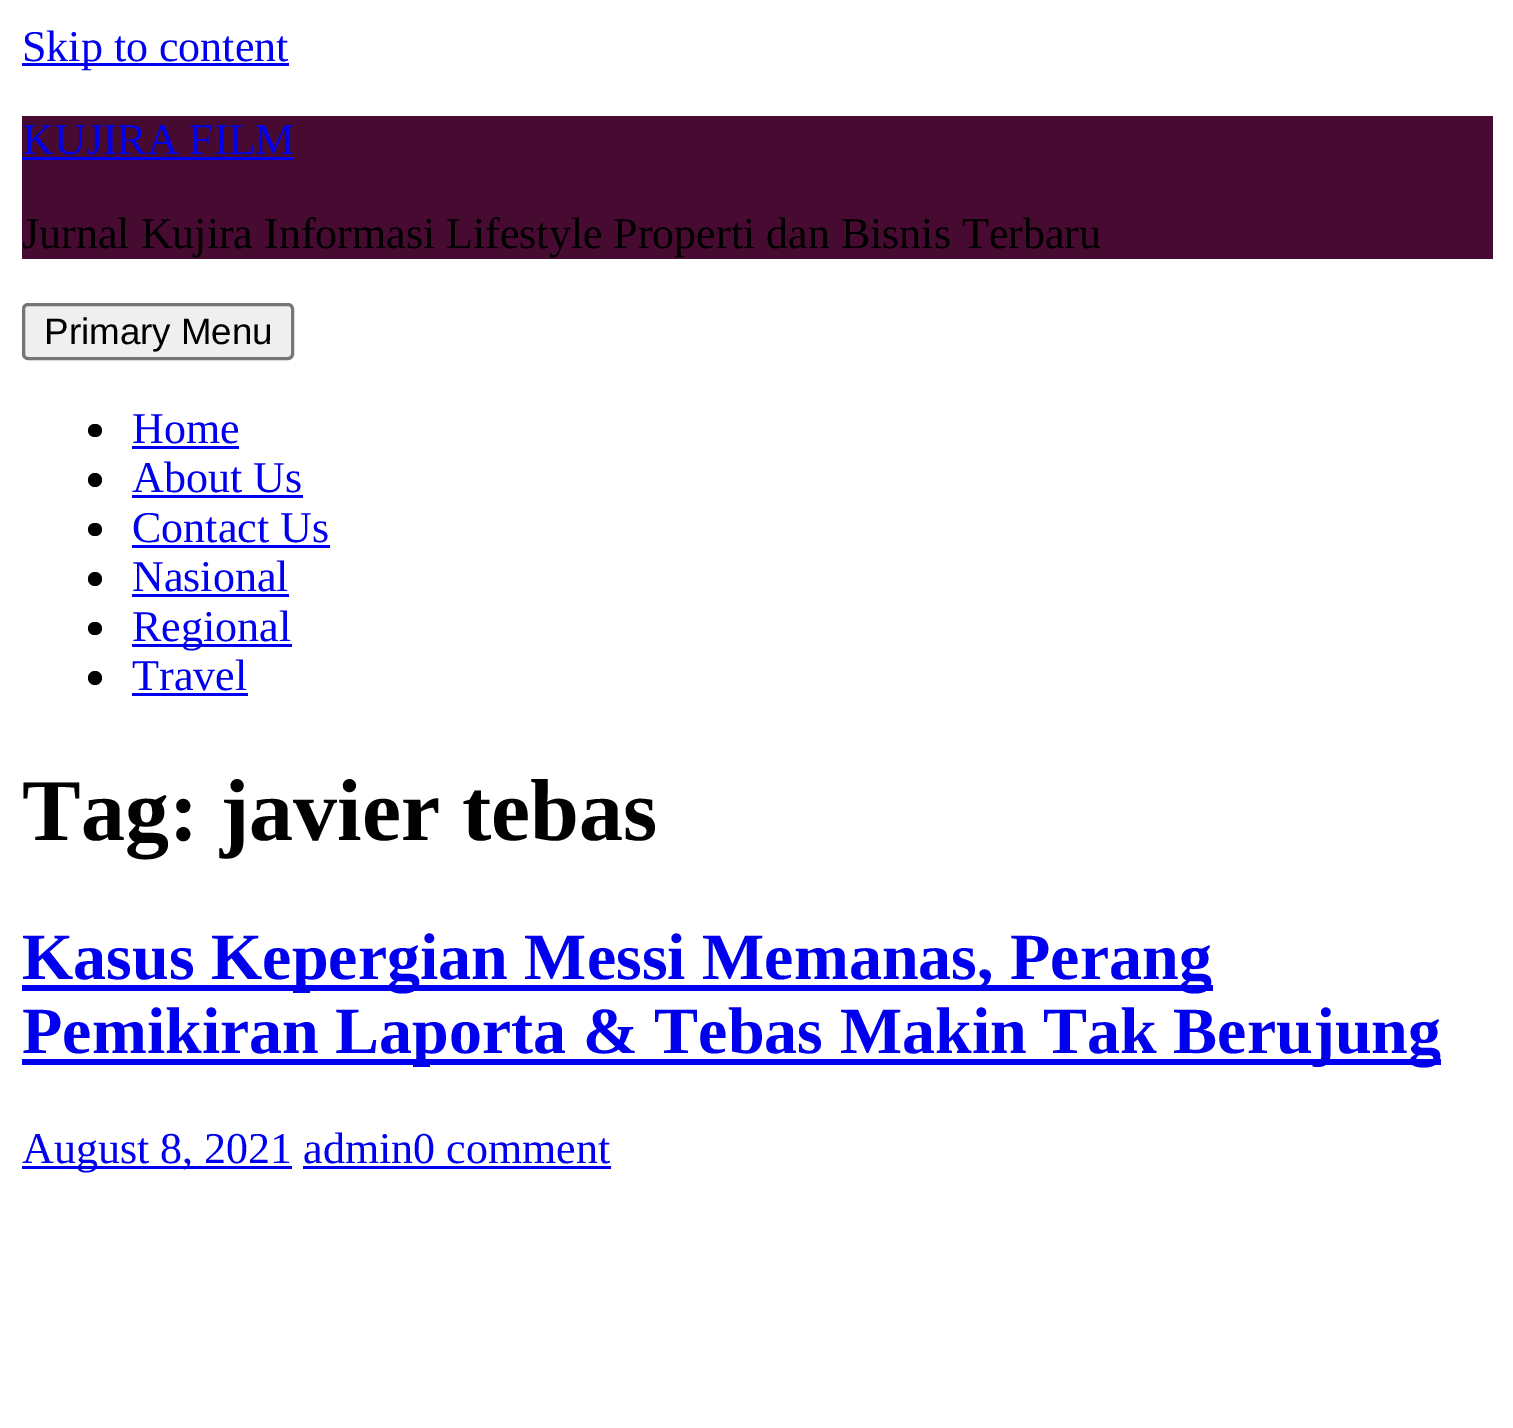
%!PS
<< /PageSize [1513 1428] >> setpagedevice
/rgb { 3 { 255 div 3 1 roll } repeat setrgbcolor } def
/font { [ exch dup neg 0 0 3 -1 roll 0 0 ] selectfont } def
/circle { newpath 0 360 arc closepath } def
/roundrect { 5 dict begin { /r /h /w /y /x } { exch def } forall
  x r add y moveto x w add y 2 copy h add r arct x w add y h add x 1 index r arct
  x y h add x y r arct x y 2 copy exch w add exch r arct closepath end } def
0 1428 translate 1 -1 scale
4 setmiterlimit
255 255 255 rgb
0 0 1513 1428 rectfill
[
  [22 63 267 3 0 0 238]
  [22 116 1471 143 71 11 49]
  [22 157 272 3 0 0 238]
] { aload pop rgb rectfill } forall
239 239 239 rgb
23.5 304.5 269 54 4.5 roundrect gsave fill grestore
118 118 118 rgb
3 setlinewidth
stroke
0 0 0 rgb
88 424 14 13 6.5 roundrect fill
0 0 238 rgb
132 446 107 3 rectfill
0 0 0 rgb
95 480 7 circle fill
0 0 238 rgb
132 495 171 3 rectfill
0 0 0 rgb
88 523 14 13 6.5 roundrect fill
0 0 238 rgb
132 545 198 3 rectfill
0 0 0 rgb
95 579 7 circle fill
0 0 238 rgb
132 594 157 3 rectfill
0 0 0 rgb
88 622 14 13 6.5 roundrect fill
0 0 238 rgb
132 644 160 3 rectfill
0 0 0 rgb
95 678 7 circle fill
[
  [132 693 116 3 0 0 238]
  [22 985 1191 6 0 0 238]
  [22 1059 1419 6 0 0 238]
  [22 1166 270 3 0 0 238]
  [303 1166 308 3 0 0 238]
] { aload pop rgb rectfill } forall
/LiberationSerif-Regular 44 font
22 61 moveto (Skip to content) show
22 154 moveto (KUJIRA FILM) show
0 0 0 rgb
22 248 moveto (Jurnal Kujira Informasi Lifestyle Properti dan Bisnis Terbaru) show
/LiberationSans-Regular 36.75 font
44 344 moveto (Primary Menu) show
/LiberationSerif-Regular 44 font
0 0 238 rgb
[
  [(Home) 132 443]
  [(About Us) 132 492]
  [(Contact Us) 132 542]
  [(Nasional) 132 591]
  [(Regional) 132 641]
  [(Travel) 132 690]
] { aload pop moveto show } forall
/LiberationSerif-Bold 88 font
0 0 0 rgb
22 840 moveto (Tag: javier tebas) show
/LiberationSerif-Bold 66 font
0 0 238 rgb
22 979 moveto (Kasus Kepergian Messi Memanas, Perang) show
22 1053 moveto (Pemikiran Laporta & Tebas Makin Tak Berujung) show
/LiberationSerif-Regular 44 font
22 1163 moveto (August 8, 2021 admin0 comment) show
showpage
